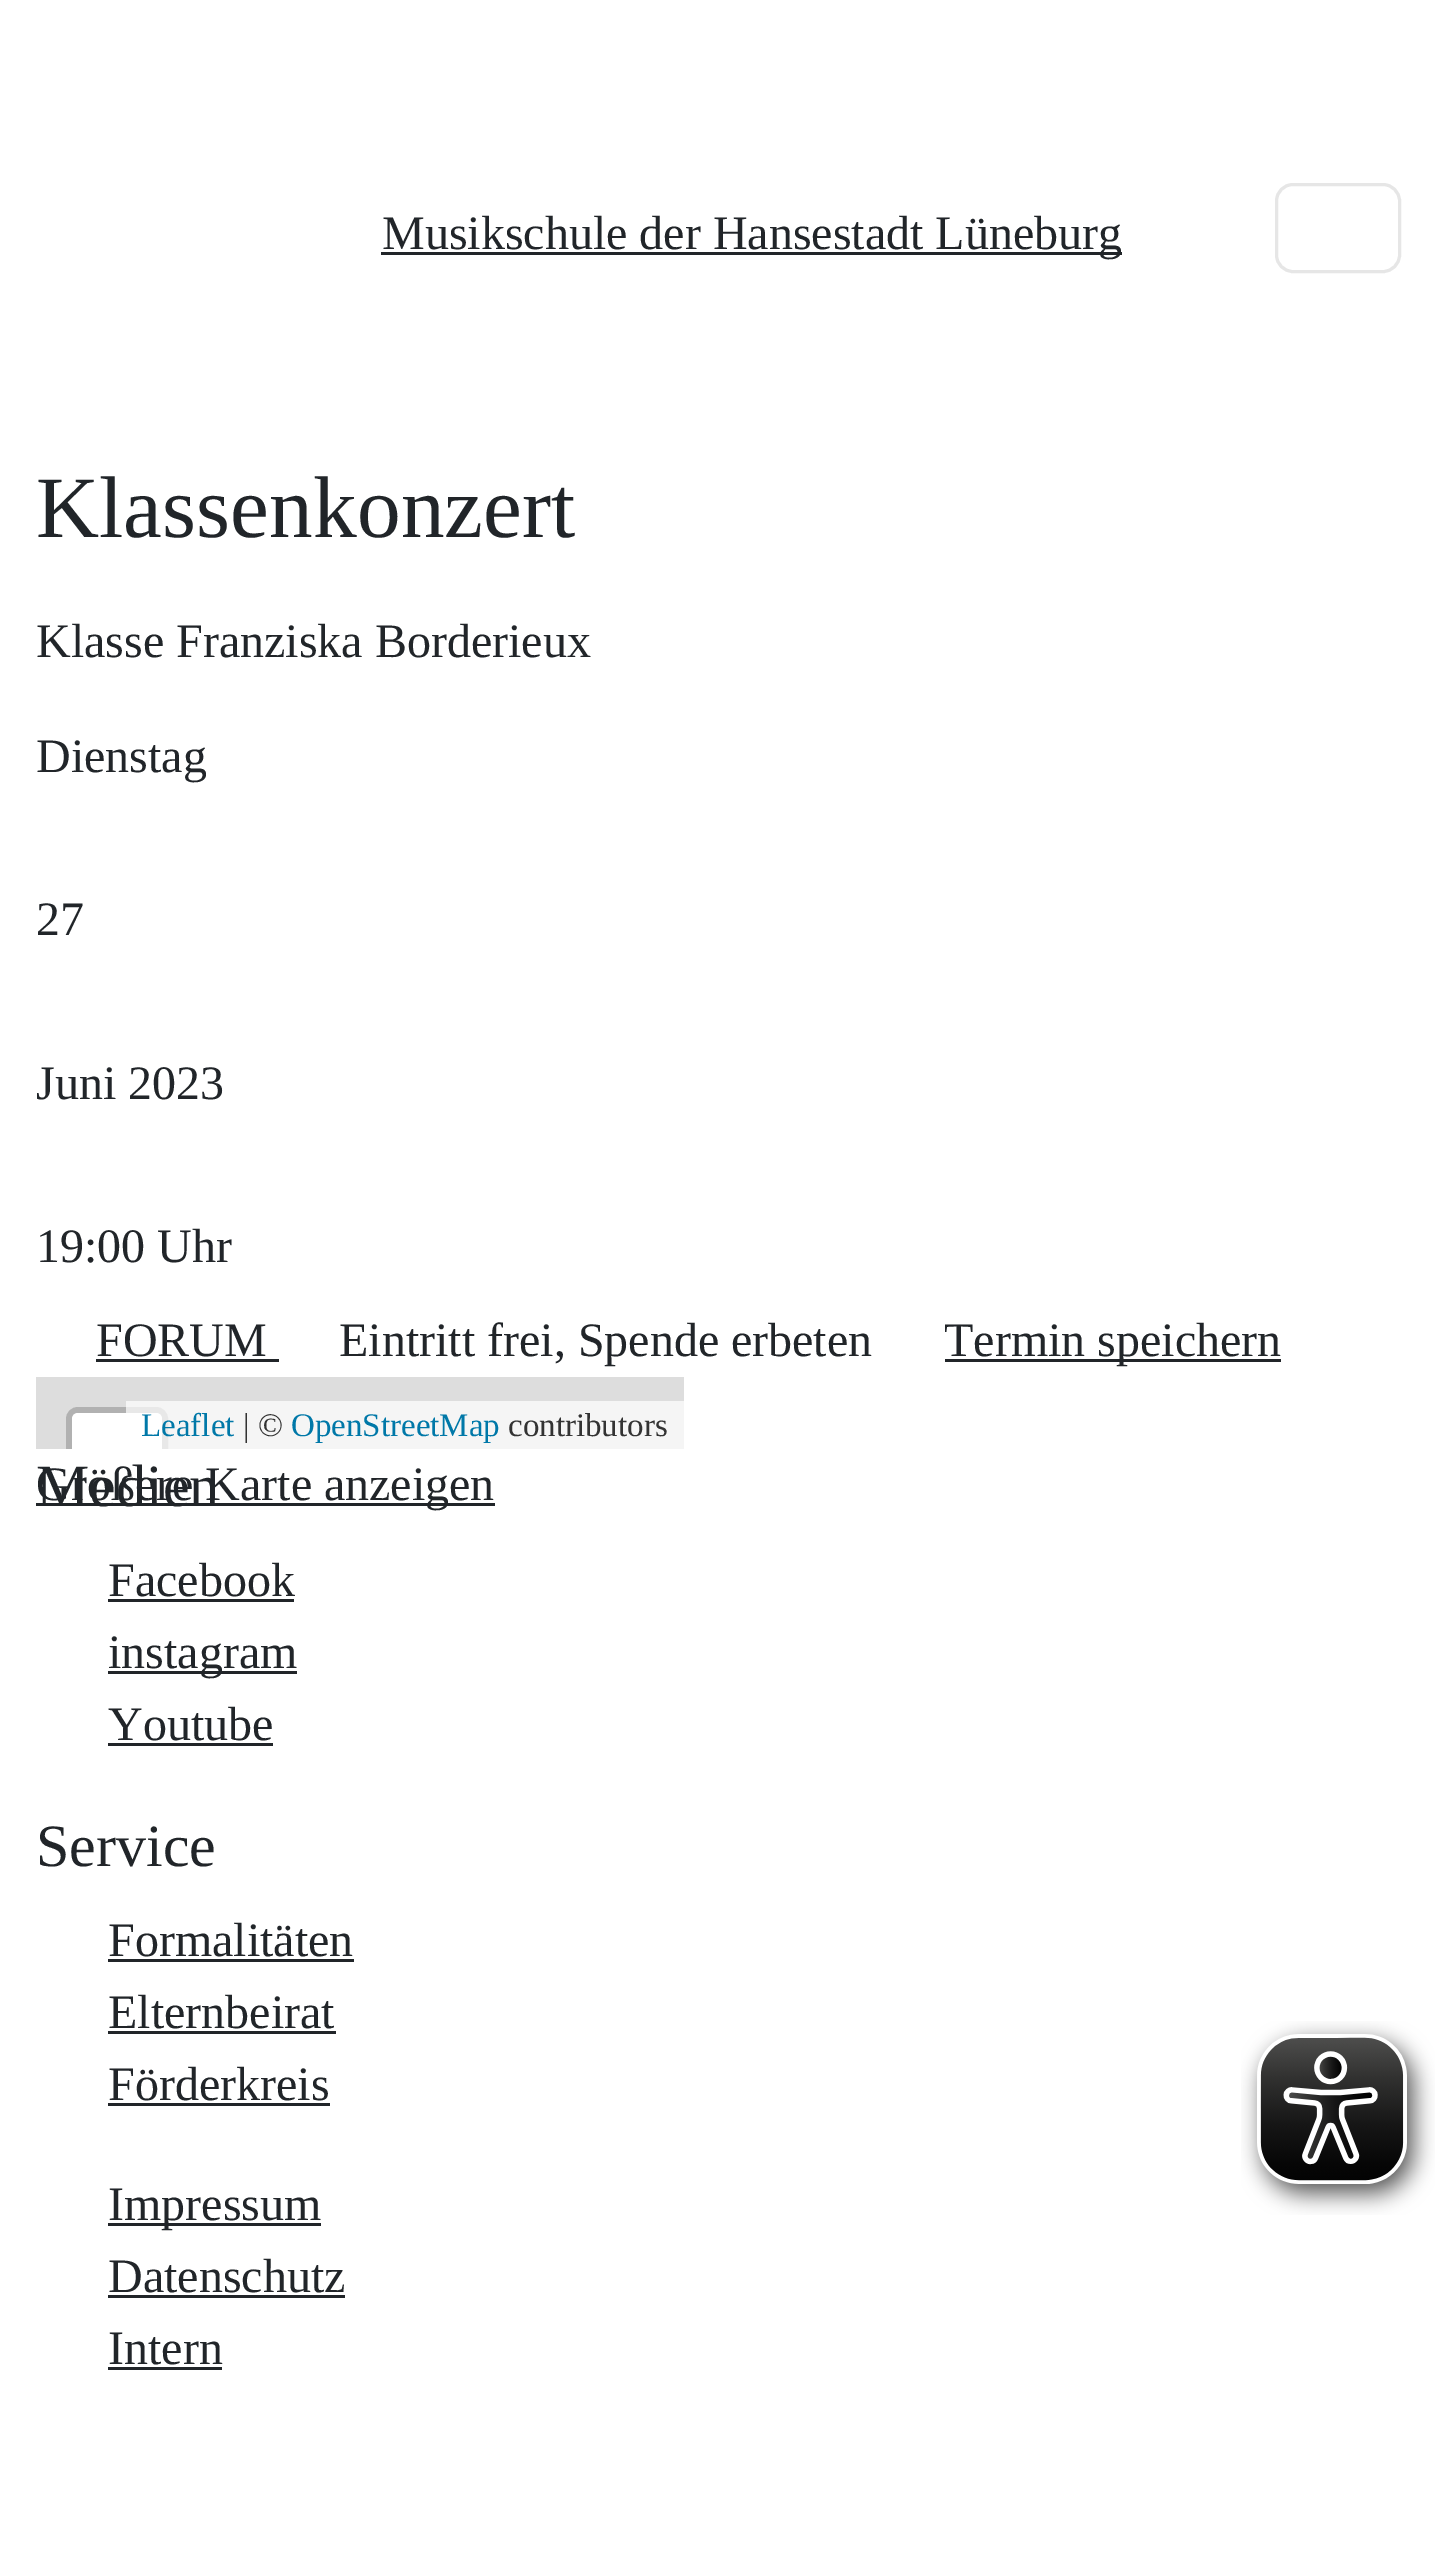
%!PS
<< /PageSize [1435 2568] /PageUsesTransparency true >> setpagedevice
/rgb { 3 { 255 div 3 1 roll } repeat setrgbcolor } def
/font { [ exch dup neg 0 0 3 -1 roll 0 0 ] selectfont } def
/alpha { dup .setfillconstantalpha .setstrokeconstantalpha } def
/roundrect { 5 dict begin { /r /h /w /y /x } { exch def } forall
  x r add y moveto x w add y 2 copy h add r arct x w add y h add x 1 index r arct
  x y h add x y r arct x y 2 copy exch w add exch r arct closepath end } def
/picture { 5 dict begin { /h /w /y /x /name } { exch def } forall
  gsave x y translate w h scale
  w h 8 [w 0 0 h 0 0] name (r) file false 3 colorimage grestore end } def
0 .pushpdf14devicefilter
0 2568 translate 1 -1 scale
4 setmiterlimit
255 255 255 rgb
0 0 1435 2568 rectfill
33 37 41 rgb
381 252 741 3 rectfill
230 230 230 rgb
3 setlinewidth
1276.5 184.5 123 87 16.5 roundrect stroke
[
  [96 1359 183 3 33 37 41]
  [945 1359 336 3 33 37 41]
  [36 1377 648 72 221 221 221]
  [36 1503 459 3 33 37 41]
  [108 1599 186 3 33 37 41]
  [108 1671 189 3 33 37 41]
  [108 1743 165 3 33 37 41]
  [108 1959 246 3 33 37 41]
  [108 2031 228 3 33 37 41]
  [108 2103 222 3 33 37 41]
  [108 2223 213 3 33 37 41]
  [108 2295 237 3 33 37 41]
  [108 2367 114 3 33 37 41]
] { aload pop rgb rectfill } forall
(img/1.rgb) 1241 2021 194 194 picture
/LiberationSerif-Regular 48 font
382 249 moveto (Musikschule der Hansestadt Lüneburg) show
/LiberationSerif-Regular 87.5 font
36 537 moveto (Klassenkonzert) show
/LiberationSerif-Regular 48 font
[
  [(Klasse Franziska Borderieux) 36 657]
  [(Dienstag) 36 772]
  [(27) 36 935]
  [(Juni 2023) 36 1099]
  [(19:00 Uhr) 36 1262]
  [(FORUM) 96 1356]
  [(Eintritt frei, Spende erbeten) 339 1356]
  [(Termin speichern) 944 1356]
  [(Größere Karte anzeigen) 36 1500]
] { aload pop moveto show } forall
/LiberationSerif-Regular 60 font
36 1506 moveto (Medien) show
/LiberationSerif-Regular 48 font
108 1596 moveto (Facebook) show
gsave
36 1377 648 72 rectclip
177 177 177 rgb
6 setlinewidth
69 1410 96 186 9 roundrect stroke
grestore
255 255 255 rgb
78 1413 moveto 156 1413 lineto 159.5 1413 162 1415.5 162 1419 curveto 162 1449 lineto 72 1449 lineto 72 1419 lineto 72 1415.5 74.5 1413 78 1413 curveto closepath fill
0.7 alpha
126 1401 558 48 rectfill
/LiberationSerif-Regular 33 font
1 alpha
51 51 51 rgb
508 1436 moveto (contributors) show
0 120 168 rgb
291 1436 moveto (OpenStreetMap) show
51 51 51 rgb
243 1436 moveto (| ©) show
0 120 168 rgb
141 1436 moveto (Leaflet) show
/LiberationSerif-Regular 48 font
33 37 41 rgb
108 1668 moveto (instagram) show
108 1740 moveto (Youtube) show
/LiberationSerif-Regular 60 font
36 1866 moveto (Service) show
/LiberationSerif-Regular 48 font
[
  [(Formalitäten) 108 1956]
  [(Elternbeirat) 108 2028]
  [(Förderkreis) 108 2100]
  [(Impressum) 108 2220]
  [(Datenschutz) 108 2292]
  [(Intern) 108 2364]
] { aload pop moveto show } forall
.poppdf14devicefilter showpage
